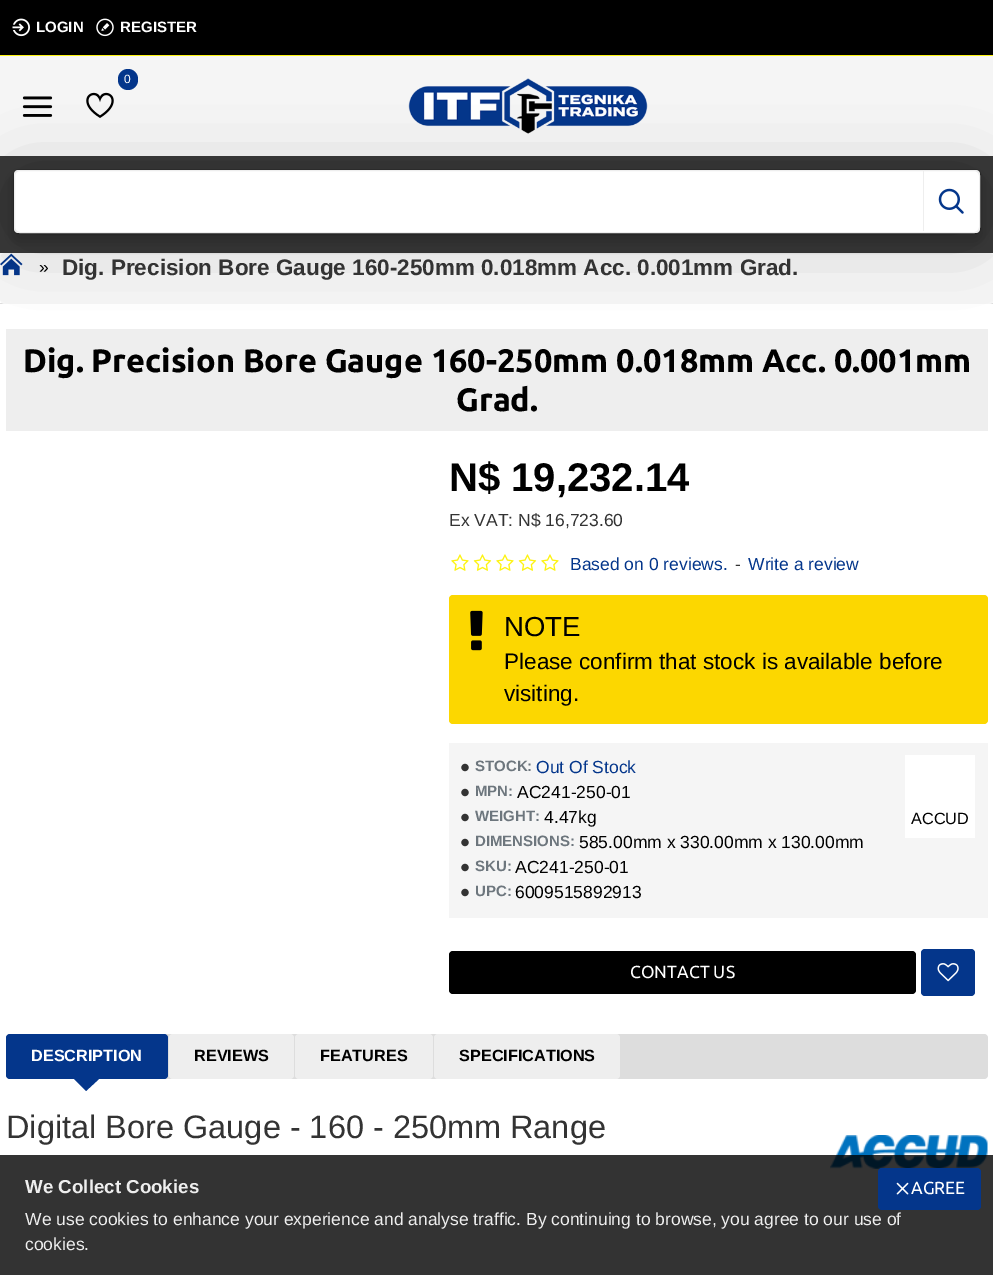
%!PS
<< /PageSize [993 1275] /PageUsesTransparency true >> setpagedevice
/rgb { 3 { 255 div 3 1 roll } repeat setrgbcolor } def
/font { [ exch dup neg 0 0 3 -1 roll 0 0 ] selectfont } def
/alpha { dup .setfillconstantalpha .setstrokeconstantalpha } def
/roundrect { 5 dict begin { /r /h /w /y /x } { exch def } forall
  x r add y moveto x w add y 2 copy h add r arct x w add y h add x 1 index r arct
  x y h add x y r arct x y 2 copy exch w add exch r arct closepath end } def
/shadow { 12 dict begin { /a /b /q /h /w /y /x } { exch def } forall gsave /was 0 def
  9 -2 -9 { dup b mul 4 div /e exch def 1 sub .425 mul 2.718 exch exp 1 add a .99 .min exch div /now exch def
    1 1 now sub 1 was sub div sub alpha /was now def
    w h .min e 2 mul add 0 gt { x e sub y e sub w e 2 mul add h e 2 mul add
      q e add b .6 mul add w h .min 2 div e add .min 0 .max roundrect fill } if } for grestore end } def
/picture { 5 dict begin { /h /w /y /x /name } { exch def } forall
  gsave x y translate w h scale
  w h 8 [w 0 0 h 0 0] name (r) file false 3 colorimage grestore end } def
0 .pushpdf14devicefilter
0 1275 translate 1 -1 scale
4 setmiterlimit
255 255 255 rgb
0 0 993 1275 rectfill
0 0 0 rgb
0 0 993 55 rectfill
253 243 18 rgb
0 55 993 1 rectfill
(img/1.rgb) 12 18 18 19 picture
(img/2.rgb) 96 18 18 19 picture
245 245 245 rgb
0 56 993 100 rectfill
(img/3.rgb) 22 96 31 21 picture
4 54 139 rgb
118 69 20 21 10 roundrect fill
(img/4.rgb) 86 92 28 26 picture
(img/5.rgb) 408 78 240 56 picture
56 56 56 rgb
0 156 993 97 rectfill
221 221 221 rgb
0 303 993 1 rectfill
245 245 245 rgb
0 253 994 51 5 roundrect fill
(img/7.rgb) 0 253 23 23 picture
0 0 0 rgb
13 176 968 65 5 7.5 0.18 shadow
255 255 255 rgb
14 170 966 63 4 roundrect fill
0.15 alpha
0 0 0 rgb
13.5 169.5 967 64 4.5 roundrect stroke
1 alpha
238 238 238 rgb
6 329 982 102 rectfill
gsave
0 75 moveto 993 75 lineto 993 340 lineto 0 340 lineto closepath 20 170 moveto 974 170 lineto 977.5 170 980 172.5 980 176 curveto 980 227 lineto 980 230.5 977.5 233 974 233 curveto 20 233 lineto 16.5 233 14 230.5 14 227 curveto 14 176 lineto 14 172.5 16.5 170 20 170 curveto closepath eoclip newpath
0 0 0 rgb
26 189 942 37 0 37.5 0.3 shadow
grestore
14.5 170.5 965 62 5.5 roundrect stroke
923 171 1 60 rectfill
(img/6.rgb) 938 188 26 26 picture
(img/8.rgb) 451 554 18 17 picture
(img/9.rgb) 473 554 19 17 picture
(img/8.rgb) 496 554 18 17 picture
(img/9.rgb) 518 554 19 17 picture
(img/8.rgb) 541 554 18 17 picture
252 215 0 rgb
449 595 539 129 4 roundrect fill
(img/10.rgb) 470 610 13 41 picture
245 245 245 rgb
449 743 539 175 rectfill
(img/11.rgb) 461 763 8 9 picture
(img/11.rgb) 461 788 8 9 picture
(img/11.rgb) 461 813 8 9 picture
(img/11.rgb) 461 838 8 9 picture
(img/11.rgb) 461 863 8 9 picture
(img/11.rgb) 461 888 8 9 picture
255 255 255 rgb
905 755 70 83 rectfill
0 0 0 rgb
449 951 467 43 4 roundrect fill
4 54 139 rgb
921 949 54 47 4 roundrect fill
(img/12.rgb) 937 963 22 19 picture
221 221 221 rgb
6 1034 982 45 4 roundrect fill
4 54 139 rgb
6 1034 162 45 4 roundrect fill
74 1079 moveto 99 1079 lineto 86 1091 lineto closepath fill
238 238 238 rgb
169 1034 125 45 4 roundrect fill
295 1034 138 45 4 roundrect fill
434 1034 186 45 4 roundrect fill
(img/13.rgb) 830 1135 158 34 picture
0.8 alpha
0 0 0 rgb
0 1155 993 120 rectfill
1 alpha
4 54 139 rgb
878 1168 103 42 4 roundrect fill
(img/14.rgb) 896 1182 13 13 picture
/LiberationSans-Bold 15 font
255 255 255 rgb
36 32 moveto (LOGIN) show
120 32 moveto (REGISTER) show
/LiberationSans-Regular 12 font
124 83 moveto (0) show
/LiberationSans-Regular 17.5 font
0 0 0 rgb
39 273 moveto (») show
/LiberationSans-Bold 22.5 font
51 51 51 rgb
62 275 moveto (Dig. Precision Bore Gauge 160-250mm 0.018mm Acc. 0.001mm Grad.) show
/Ubuntu-Bold 32.5 font
0 0 0 rgb
23 372 moveto (Dig. Precision Bore Gauge 160-250mm 0.018mm Acc. 0.001mm) show
456 411 moveto (Grad.) show
/LiberationSans-Bold 40 font
449 491 moveto (N$ 19,232.14) show
/LiberationSans-Regular 17.5 font
51 51 51 rgb
449 526 moveto (Ex VAT: N$ 16,723.60) show
4 54 139 rgb
570 570 moveto (Based on 0 reviews.) show
51 51 51 rgb
735 570 moveto (-) show
4 54 139 rgb
748 570 moveto (Write a review) show
/LiberationSans-Regular 27.5 font
0 0 0 rgb
504 636 moveto (NOTE) show
/LiberationSans-Regular 22.5 font
504 669 moveto (Please confirm that stock is available before) show
504 701 moveto (visiting.) show
/LiberationSans-Bold 15 font
109 118 125 rgb
475 771 moveto (STOCK:) show
/LiberationSans-Regular 17.5 font
4 54 139 rgb
536 773 moveto (Out Of Stock) show
/LiberationSans-Bold 15 font
109 118 125 rgb
475 796 moveto (MPN:) show
/LiberationSans-Regular 17.5 font
0 0 0 rgb
517 798 moveto (AC241-250-01) show
/LiberationSans-Bold 15 font
109 118 125 rgb
475 821 moveto (WEIGHT:) show
/LiberationSans-Regular 17.5 font
0 0 0 rgb
544 823 moveto (4.47kg) show
/LiberationSans-Bold 15 font
109 118 125 rgb
475 846 moveto (DIMENSIONS:) show
/LiberationSans-Regular 17.5 font
0 0 0 rgb
579 848 moveto (585.00mm x 330.00mm x 130.00mm) show
/LiberationSans-Bold 15 font
109 118 125 rgb
475 871 moveto (SKU:) show
/LiberationSans-Regular 17.5 font
0 0 0 rgb
515 873 moveto (AC241-250-01) show
/LiberationSans-Bold 15 font
109 118 125 rgb
475 896 moveto (UPC:) show
/LiberationSans-Regular 17.5 font
0 0 0 rgb
515 898 moveto (6009515892913) show
/LiberationSans-Regular 16.25 font
911 824 moveto (ACCUD) show
/Ubuntu-Regular 17.5 font
255 255 255 rgb
630 978 moveto (CONTACT US) show
/LiberationSans-Bold 16.25 font
31 1061 moveto (DESCRIPTION) show
0 0 0 rgb
[
  [(REVIEWS) 194 1061]
  [(FEATURES) 320 1061]
  [(SPECIFICATIONS) 459 1061]
] { aload pop moveto show } forall
/LiberationSans-Regular 32.5 font
51 51 51 rgb
6 1138 moveto (Digital Bore Gauge - 160 - 250mm Range) show
/LiberationSans-Bold 18.75 font
238 238 238 rgb
25 1193 moveto (We Collect Cookies) show
/LiberationSans-Regular 17.5 font
25 1225 moveto (We use cookies to enhance your experience and analyse traffic. By continuing to browse, you agree to our use of) show
25 1250 moveto (cookies.) show
/Ubuntu-Regular 17.5 font
255 255 255 rgb
911 1194 moveto (AGREE) show
.poppdf14devicefilter showpage
